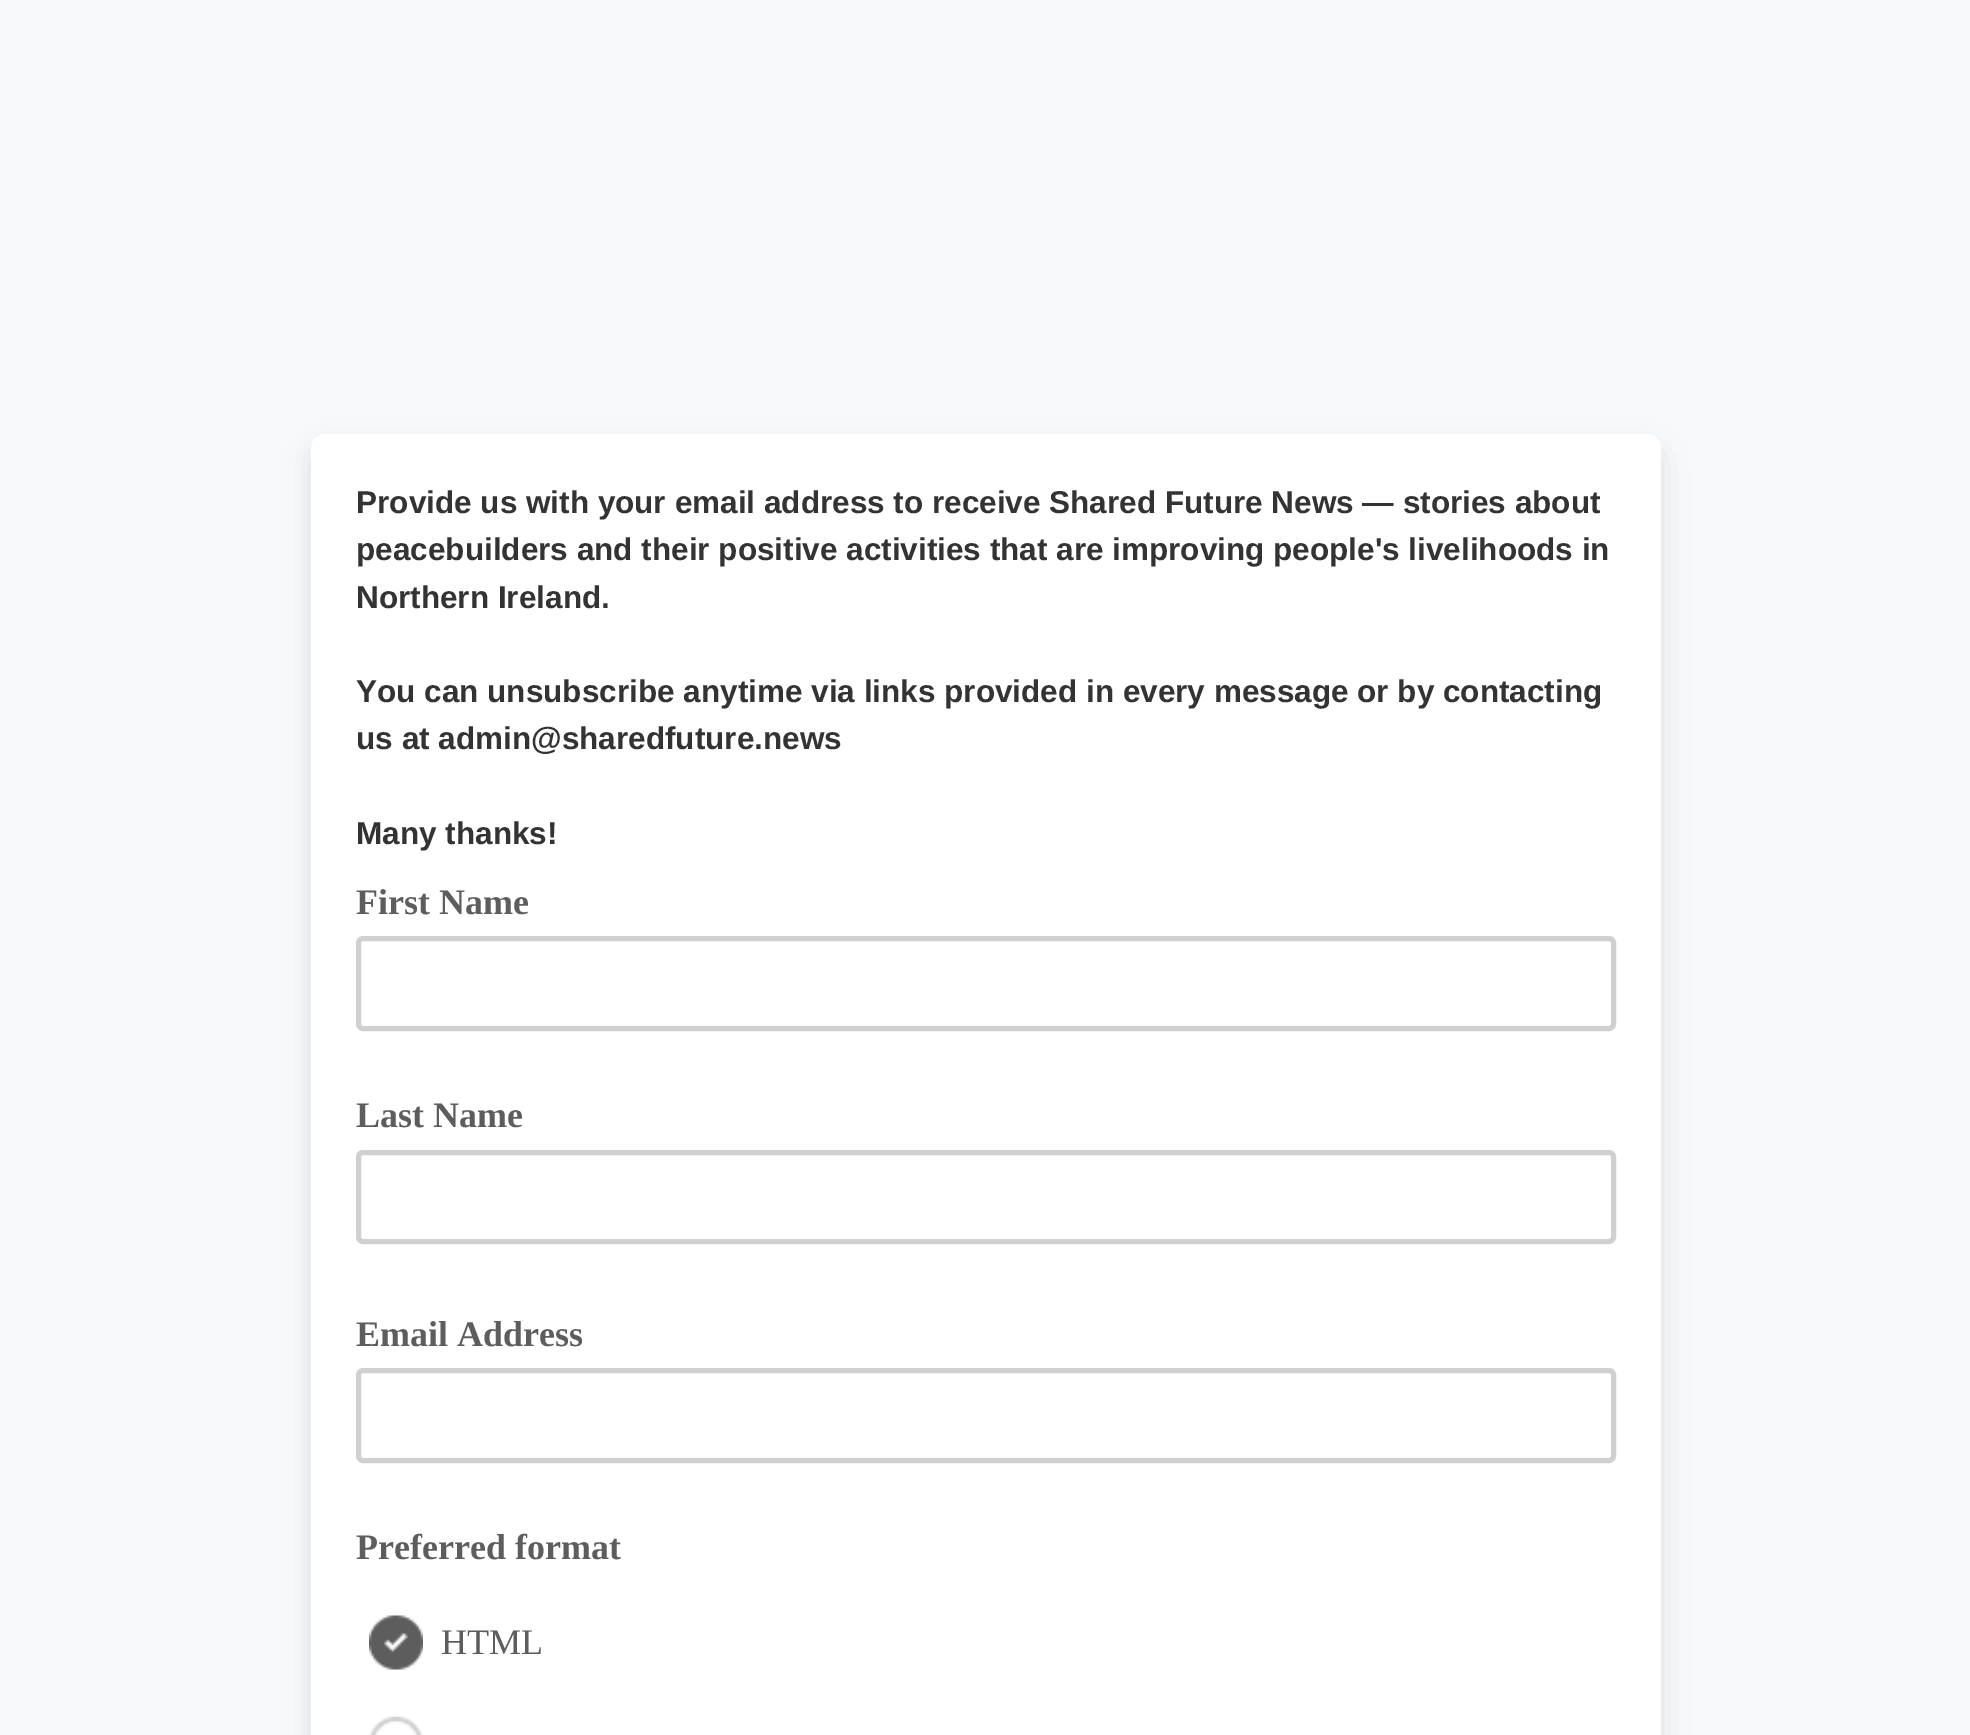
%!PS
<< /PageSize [1970 1735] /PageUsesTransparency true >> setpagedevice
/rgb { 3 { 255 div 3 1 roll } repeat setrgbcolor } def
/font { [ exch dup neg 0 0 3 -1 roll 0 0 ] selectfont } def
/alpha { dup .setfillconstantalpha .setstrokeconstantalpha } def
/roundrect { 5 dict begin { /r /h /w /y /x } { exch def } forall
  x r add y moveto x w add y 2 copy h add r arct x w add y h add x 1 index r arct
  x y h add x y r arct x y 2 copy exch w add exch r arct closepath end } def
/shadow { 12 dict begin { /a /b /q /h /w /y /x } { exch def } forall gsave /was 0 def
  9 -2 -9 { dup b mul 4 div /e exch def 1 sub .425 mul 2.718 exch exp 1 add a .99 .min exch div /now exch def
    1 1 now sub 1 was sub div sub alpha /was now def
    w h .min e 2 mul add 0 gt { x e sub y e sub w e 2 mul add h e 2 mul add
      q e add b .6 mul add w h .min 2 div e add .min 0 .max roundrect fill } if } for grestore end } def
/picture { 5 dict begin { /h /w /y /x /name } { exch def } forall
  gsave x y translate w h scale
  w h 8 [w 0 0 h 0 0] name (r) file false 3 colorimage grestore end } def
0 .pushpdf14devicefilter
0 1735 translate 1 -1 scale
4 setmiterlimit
248 249 251 rgb
0 0 1970 1735 rectfill
13 18 22 rgb
311 448 1350 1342 14 13.5 0.12 shadow
255 255 255 rgb
311 434 1350 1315 14 roundrect fill
208 208 208 rgb
5 setlinewidth
358.5 938.5 1255 90 4.5 roundrect stroke
358.5 1152.5 1255 89 4.5 roundrect stroke
358.5 1370.5 1255 90 4.5 roundrect stroke
(img/1.rgb) 369 1615 54 55 picture
(img/2.rgb) 369 1716 54 19 picture
/LiberationSans-Bold 31.5 font
51 51 51 rgb
[
  [(Provide us with your email address to receive Shared Future News — stories about) 356 513]
  [(peacebuilders and their positive activities that are improving people's livelihoods in) 356 560]
  [(Northern Ireland.) 356 608]
  [(You can unsubscribe anytime via links provided in every message or by contacting) 356 702]
  [(us at admin@sharedfuture.news) 356 749]
  [(Many thanks!) 356 844]
] { aload pop moveto show } forall
/LiberationSerif-Bold 36 font
93 93 93 rgb
[
  [(First Name) 356 914]
  [(Last Name) 356 1127]
  [(Email Address) 356 1346]
  [(Preferred format) 356 1559]
] { aload pop moveto show } forall
/LiberationSerif-Regular 36 font
441 1654 moveto (HTML) show
.poppdf14devicefilter showpage
